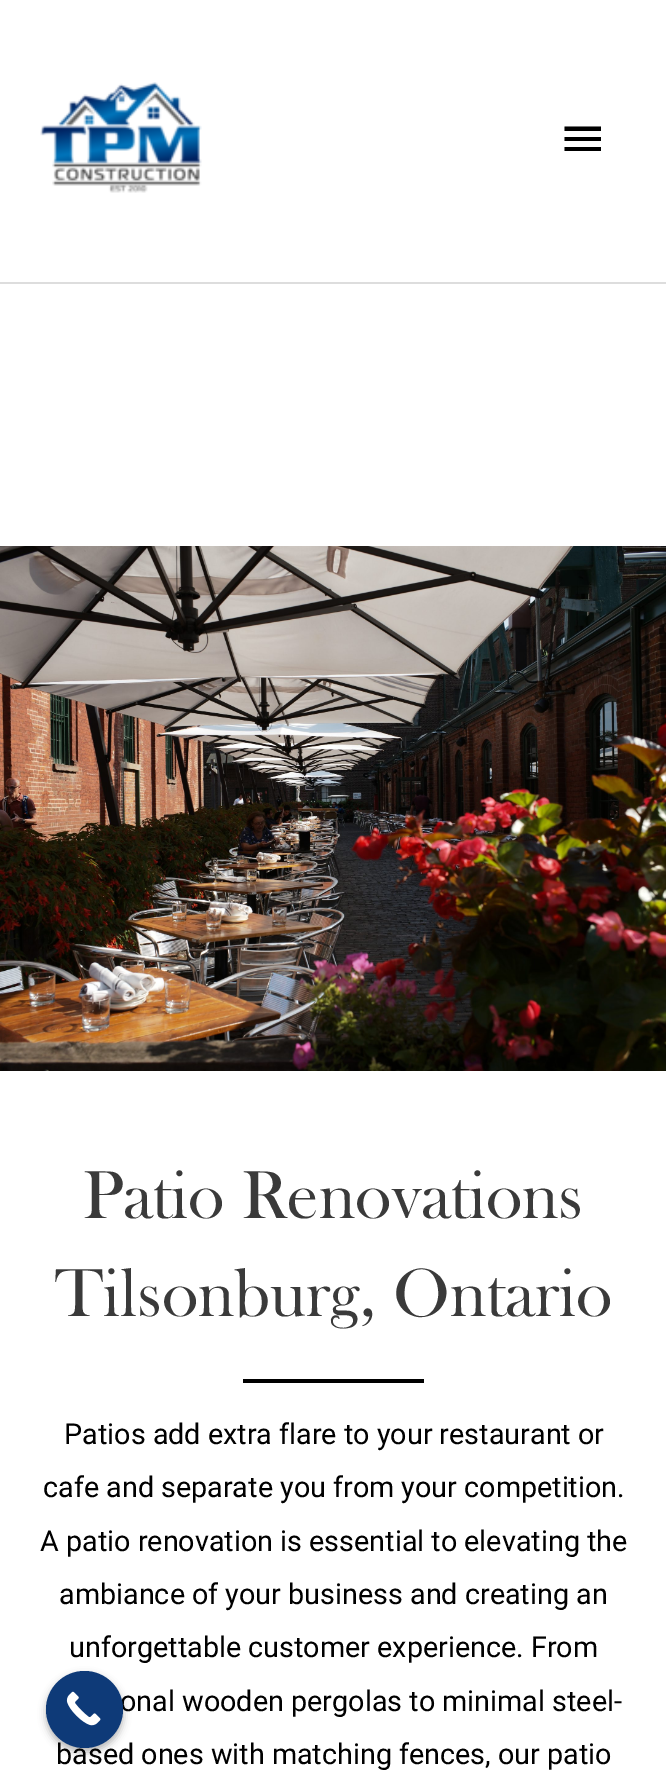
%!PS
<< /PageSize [666 1782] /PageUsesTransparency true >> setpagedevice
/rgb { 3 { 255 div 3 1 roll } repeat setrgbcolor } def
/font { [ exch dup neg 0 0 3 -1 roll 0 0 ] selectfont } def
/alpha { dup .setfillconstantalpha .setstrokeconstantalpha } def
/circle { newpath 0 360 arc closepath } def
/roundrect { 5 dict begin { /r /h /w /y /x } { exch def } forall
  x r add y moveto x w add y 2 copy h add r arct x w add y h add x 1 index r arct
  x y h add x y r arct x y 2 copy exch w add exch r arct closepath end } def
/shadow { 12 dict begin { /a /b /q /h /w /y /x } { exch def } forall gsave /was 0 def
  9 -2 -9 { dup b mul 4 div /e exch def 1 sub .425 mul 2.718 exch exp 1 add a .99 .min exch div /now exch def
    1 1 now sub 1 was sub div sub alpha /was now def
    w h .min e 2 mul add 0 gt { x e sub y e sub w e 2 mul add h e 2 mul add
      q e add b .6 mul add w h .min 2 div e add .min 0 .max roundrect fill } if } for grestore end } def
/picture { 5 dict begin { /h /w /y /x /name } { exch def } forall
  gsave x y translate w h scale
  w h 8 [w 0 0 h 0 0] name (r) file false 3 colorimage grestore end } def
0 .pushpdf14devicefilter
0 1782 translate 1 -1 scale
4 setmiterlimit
255 255 255 rgb
0 0 666 1782 rectfill
221 221 221 rgb
0 282 666 2 rectfill
(img/1.rgb) 40 82 162 111 picture
0 0 0 rgb
564.5 126.5 moveto 601 126.5 lineto 601 131 lineto 564.5 131 lineto closepath 564.5 141 moveto 564.5 137 lineto 601 137 lineto 601 141 lineto closepath 564.5 151 moveto 564.5 147 lineto 601 147 lineto 601 151 lineto closepath fill
(img/2.rgb) 0 546 666 525 picture
243 1379 181 4 rectfill
gsave
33 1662 moveto 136 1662 lineto 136 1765 lineto 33 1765 lineto closepath 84.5 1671 moveto 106 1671 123 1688 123 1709.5 curveto 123 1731 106 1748 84.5 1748 curveto 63 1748 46 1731 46 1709.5 curveto 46 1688 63 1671 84.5 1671 curveto closepath eoclip newpath
46 1675 77 77 38.5 4 0.3 shadow
grestore
/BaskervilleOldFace-Regular 70 font
58 58 58 rgb
83 1218 moveto (Patio Renovations) show
55 1316 moveto (Tilsonburg, Ontario) show
/Roboto-Regular 28.75 font
0 0 0 rgb
[
  [(Patios add extra flare to your restaurant or) 64 1444]
  [(cafe and separate you from your competition.) 43 1497]
  [(A patio renovation is essential to elevating the) 40 1551]
  [(ambiance of your business and creating an) 59 1604]
  [(unforgettable customer experience. From) 69 1657]
  [(onal wooden pergolas to minimal steel-) 120 1711]
  [(based ones with matching fences, our patio) 56 1764]
] { aload pop moveto show } forall
14 58 120 rgb
84.5 1709.5 38.5 circle fill
(img/3.rgb) 66 1691 35 35 picture
.poppdf14devicefilter showpage
